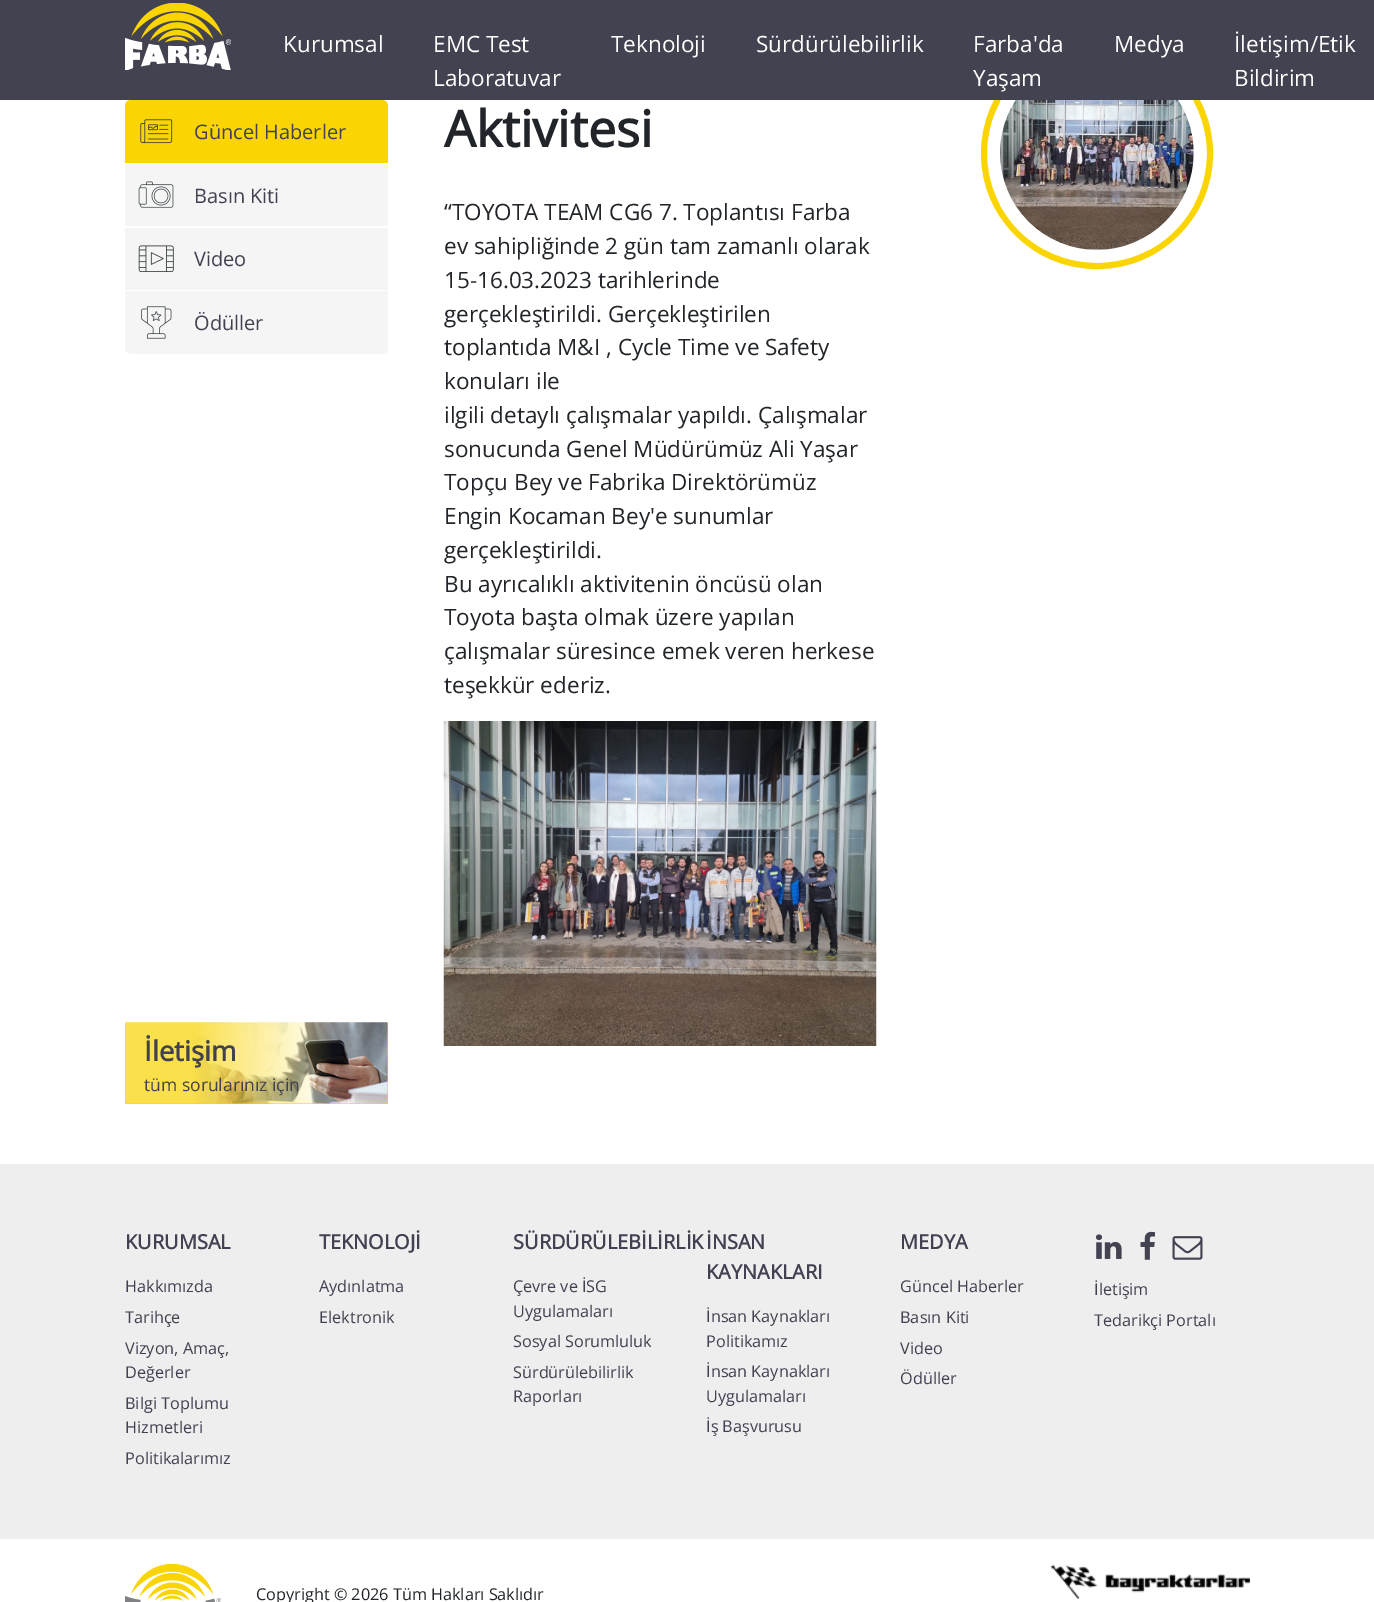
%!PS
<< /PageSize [1374 1602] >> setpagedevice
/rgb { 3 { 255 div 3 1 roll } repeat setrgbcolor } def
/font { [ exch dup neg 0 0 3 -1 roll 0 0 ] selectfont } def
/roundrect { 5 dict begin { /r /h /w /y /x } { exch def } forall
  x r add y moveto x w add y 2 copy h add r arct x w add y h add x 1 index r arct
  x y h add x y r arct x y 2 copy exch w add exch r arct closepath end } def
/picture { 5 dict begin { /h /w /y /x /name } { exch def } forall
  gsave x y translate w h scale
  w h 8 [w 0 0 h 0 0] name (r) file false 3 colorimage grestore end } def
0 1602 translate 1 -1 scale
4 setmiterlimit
255 255 255 rgb
0 0 1374 1602 rectfill
250 213 1 rgb
6 setlinewidth
984 41 226 225 112.5 roundrect stroke
66 66 81 rgb
0 0 1374 100 rectfill
(img/1.rgb) 125 3 106 67 picture
250 213 1 rgb
131 100 moveto 382 100 lineto 385.5 100 388 102.5 388 106 curveto 388 163 lineto 125 163 lineto 125 106 lineto 125 102.5 127.5 100 131 100 curveto closepath fill
(img/2.rgb) 140 119 33 25 picture
245 245 245 rgb
125 164 263 62 rectfill
(img/3.rgb) 138 181 36 27 picture
125 228 263 62 rectfill
(img/4.rgb) 138 245 36 27 picture
125 291 moveto 388 291 lineto 388 348 lineto 388 351.5 385.5 354 382 354 curveto 131 354 lineto 127.5 354 125 351.5 125 348 curveto closepath fill
(img/5.rgb) 141 306 31 33 picture
250 213 1 rgb
125 1023 263 81 rectfill
(img/6.rgb) 125 1022 263 82 picture
(img/7.rgb) 443 721 434 325 picture
(img/8.rgb) 1000 100 194 150 picture
238 238 238 rgb
0 1164 1374 375 rectfill
(img/9.rgb) 1095 1234 27 25 picture
(img/10.rgb) 1140 1231 15 29 picture
(img/11.rgb) 1172 1236 31 24 picture
(img/12.rgb) 125 1564 96 38 picture
(img/13.rgb) 1051 1564 199 35 picture
/OpenSans-Regular 22.5 font
255 255 255 rgb
[
  [(Kurumsal) 283 52]
  [(EMC Test) 433 52]
  [(Laboratuvar) 433 86]
  [(Teknoloji) 611 52]
  [(Sürdürülebilirlik) 756 52]
  [(Farba'da) 973 52]
  [(Yaşam) 973 86]
  [(Medya) 1114 52]
  [(İletişim/Etik) 1234 52]
  [(Bildirim) 1234 86]
] { aload pop moveto show } forall
/OpenSans-Regular 20 font
65 65 81 rgb
[
  [(Güncel Haberler) 194 139]
  [(Basın Kiti) 194 203]
  [(Video) 194 266]
  [(Ödüller) 194 330]
] { aload pop moveto show } forall
/OpenSans-Bold 27.5 font
144 1061 moveto (İletişim) show
/OpenSans-Regular 17.5 font
144 1091 moveto (tüm sorularınız için) show
/OpenSans-Bold 50 font
33 37 41 rgb
444 147 moveto (Aktivitesi) show
/OpenSans-Regular 22.5 font
[
  [(“TOYOTA TEAM CG6 7. Toplantısı Farba) 444 220]
  [(ev sahipliğinde 2 gün tam zamanlı olarak) 444 254]
  [(15-16.03.2023 tarihlerinde) 444 288]
  [(gerçekleştirildi. Gerçekleştirilen) 444 322]
  [(toplantıda M&I , Cycle Time ve Safety) 444 355]
  [(konuları ile) 444 389]
  [(ilgili detaylı çalışmalar yapıldı. Çalışmalar) 444 423]
  [(sonucunda Genel Müdürümüz Ali Yaşar) 444 457]
  [(Topçu Bey ve Fabrika Direktörümüz) 444 490]
  [(Engin Kocaman Bey'e sunumlar) 444 524]
  [(gerçekleştirildi.) 444 558]
  [(Bu ayrıcalıklı aktivitenin öncüsü olan) 444 592]
  [(Toyota başta olmak üzere yapılan) 444 625]
  [(çalışmalar süresince emek veren herkese) 444 659]
  [(teşekkür ederiz.) 444 693]
] { aload pop moveto show } forall
/OpenSans-Bold 20 font
65 65 81 rgb
125 1249 moveto (KURUMSAL) show
/OpenSans-Regular 16.25 font
[
  [(Hakkımızda) 125 1292]
  [(Tarihçe) 125 1323]
  [(Vizyon, Amaç,) 125 1354]
  [(Değerler) 125 1378]
  [(Bilgi Toplumu) 125 1409]
  [(Hizmetleri) 125 1433]
  [(Politikalarımız) 125 1464]
] { aload pop moveto show } forall
/OpenSans-Bold 20 font
319 1249 moveto (TEKNOLOJİ) show
/OpenSans-Regular 16.25 font
319 1292 moveto (Aydınlatma) show
319 1323 moveto (Elektronik) show
/OpenSans-Bold 20 font
513 1249 moveto (SÜRDÜRÜLEBİLİRLİK) show
/OpenSans-Regular 16.25 font
[
  [(Çevre ve İSG) 513 1292]
  [(Uygulamaları) 513 1317]
  [(Sosyal Sorumluluk) 513 1347]
  [(Sürdürülebilirlik) 513 1378]
  [(Raporları) 513 1402]
] { aload pop moveto show } forall
/OpenSans-Bold 20 font
706 1249 moveto (İNSAN) show
706 1279 moveto (KAYNAKLARI) show
/OpenSans-Regular 16.25 font
[
  [(İnsan Kaynakları) 706 1322]
  [(Politikamız) 706 1347]
  [(İnsan Kaynakları) 706 1377]
  [(Uygulamaları) 706 1402]
  [(İş Başvurusu) 706 1432]
] { aload pop moveto show } forall
/OpenSans-Bold 20 font
900 1249 moveto (MEDYA) show
/OpenSans-Regular 16.25 font
[
  [(Güncel Haberler) 900 1292]
  [(Basın Kiti) 900 1323]
  [(Video) 900 1354]
  [(Ödüller) 900 1384]
  [(İletişim) 1094 1295]
  [(Tedarikçi Portalı) 1094 1326]
] { aload pop moveto show } forall
33 37 41 rgb
256 1600 moveto (Copyright © 2026 Tüm Hakları Saklıdır) show
showpage
